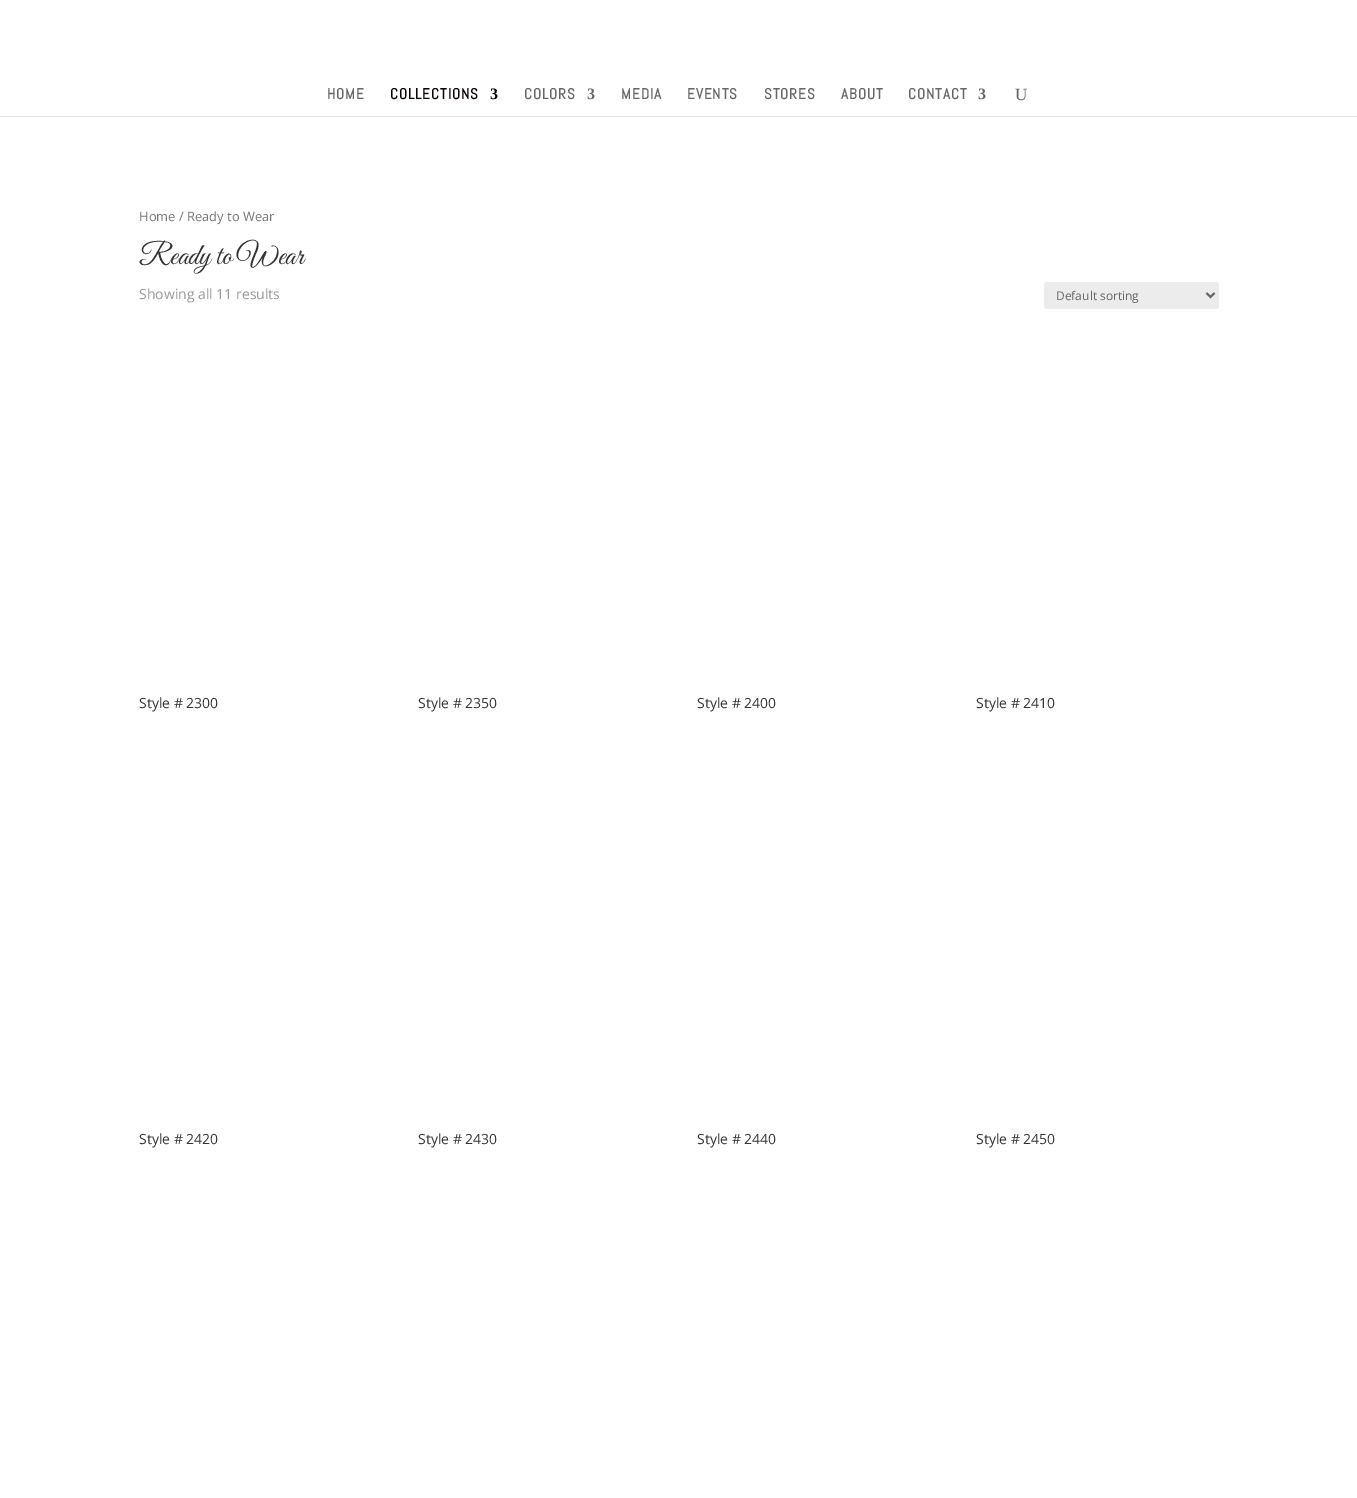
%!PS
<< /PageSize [1357 1498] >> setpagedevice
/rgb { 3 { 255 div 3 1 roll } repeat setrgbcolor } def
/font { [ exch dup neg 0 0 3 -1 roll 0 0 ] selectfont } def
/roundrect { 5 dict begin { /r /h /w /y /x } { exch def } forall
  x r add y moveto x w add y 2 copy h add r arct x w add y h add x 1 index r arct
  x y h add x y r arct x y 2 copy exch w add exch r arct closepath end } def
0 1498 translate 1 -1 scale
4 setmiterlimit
255 255 255 rgb
0 0 1357 1498 rectfill
230 230 230 rgb
0 116 1357 1 rectfill
236 236 236 rgb
1044 282 175 27 3 roundrect fill
102 102 102 rgb
2 setlinewidth
1206.5 293 moveto 1210.5 297 lineto 1214.5 293 lineto stroke
/Abel-Bold 15 font
327 99 moveto 1 0 (HOME) ashow
10 0 0 rgb
390 99 moveto 1 0 (COLLECTIONS) ashow
/LiberationSerif-Bold 16 font
490 99 moveto 1 0 (3) ashow
/Abel-Bold 15 font
102 102 102 rgb
524 99 moveto 1 0 (COLORS) ashow
/LiberationSerif-Bold 16 font
587 99 moveto 1 0 (3) ashow
/Abel-Bold 15 font
621 99 moveto 1 0 (MEDIA) ashow
687 99 moveto 1 0 (EVENTS) ashow
764 99 moveto 1 0 (STORES) ashow
841 99 moveto 1 0 (ABOUT) ashow
908 99 moveto 1 0 (CONTACT) ashow
/LiberationSerif-Bold 16 font
978 99 moveto 1 0 (3) ashow
/LiberationSerif-Regular 17 font
1015 100 moveto (U) show
/OpenSans-Regular 12.9 font
118 118 118 rgb
139 221 moveto (Home / Ready to Wear) show
/GreatVibes-Regular 30 font
51 51 51 rgb
139 264 moveto (Ready to Wear) show
/OpenSans-Regular 14 font
153 153 153 rgb
139 299 moveto (Showing all 11 results) show
/OpenSans-Regular 12 font
102 102 102 rgb
1056 300 moveto (Default sorting) show
/OpenSans-Regular 14 font
51 51 51 rgb
[
  [(Style # 2300) 139 708]
  [(Style # 2350) 418 708]
  [(Style # 2400) 697 708]
  [(Style # 2410) 976 708]
  [(Style # 2420) 139 1144]
  [(Style # 2430) 418 1144]
  [(Style # 2440) 697 1144]
  [(Style # 2450) 976 1144]
] { aload pop moveto show } forall
showpage
